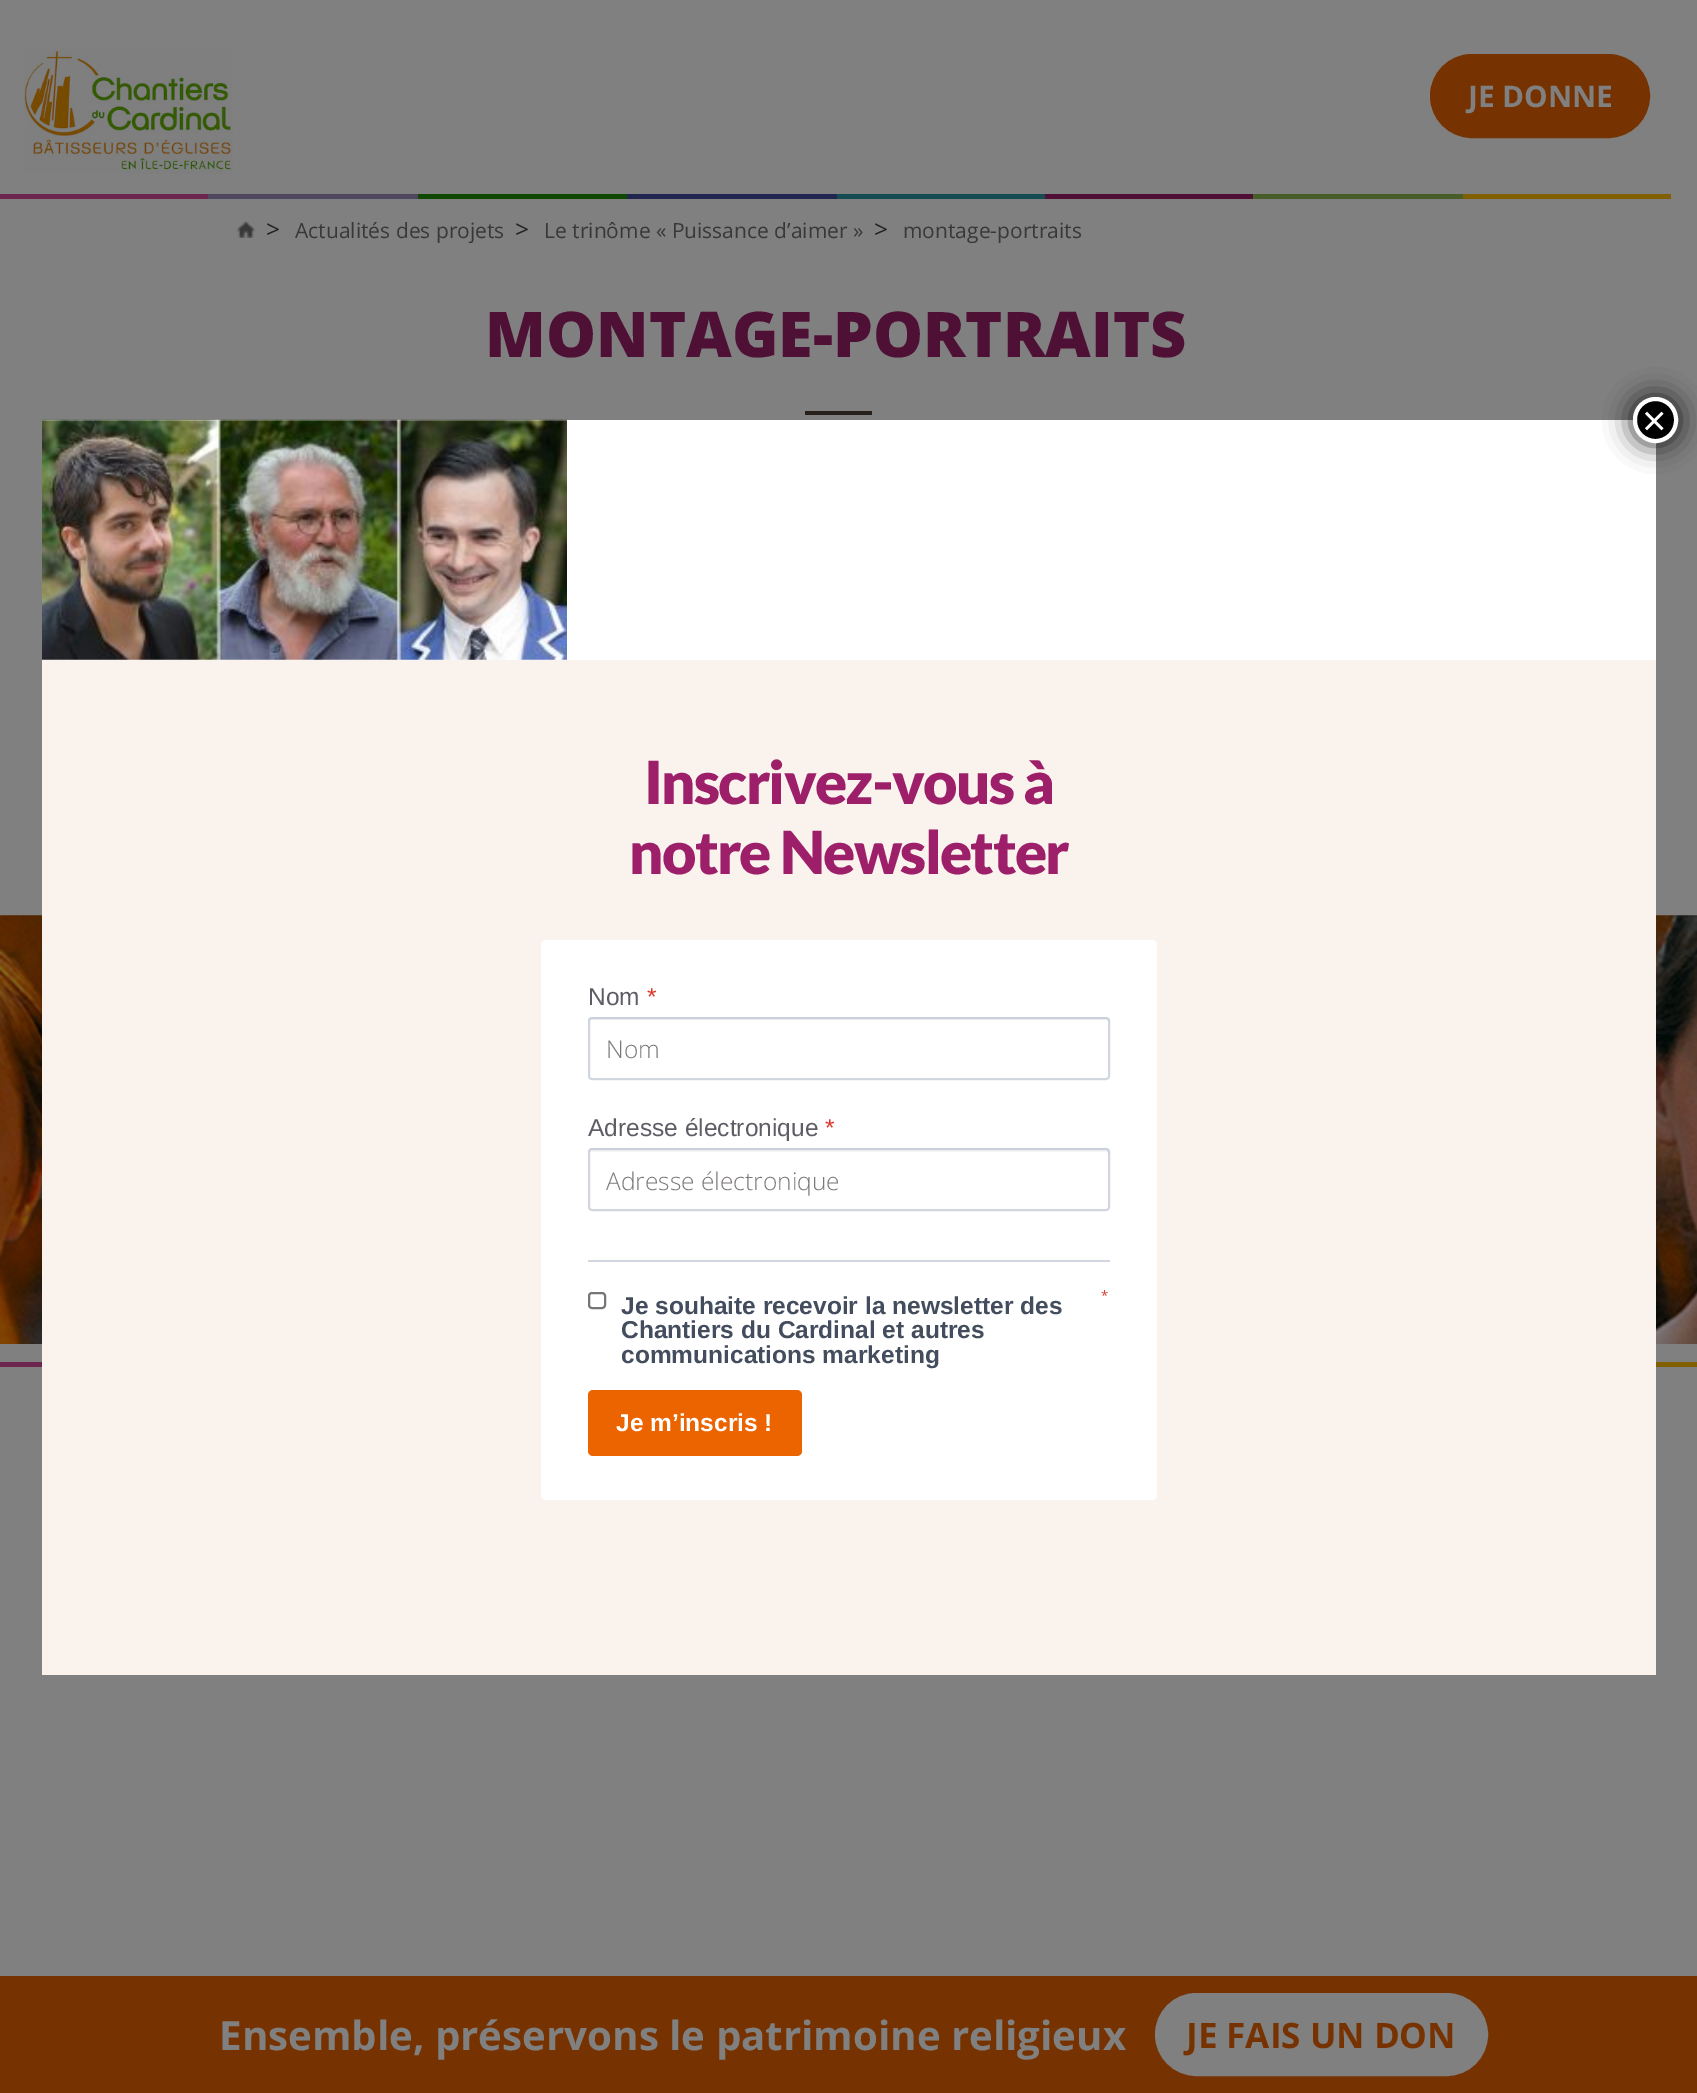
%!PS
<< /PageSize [1697 2093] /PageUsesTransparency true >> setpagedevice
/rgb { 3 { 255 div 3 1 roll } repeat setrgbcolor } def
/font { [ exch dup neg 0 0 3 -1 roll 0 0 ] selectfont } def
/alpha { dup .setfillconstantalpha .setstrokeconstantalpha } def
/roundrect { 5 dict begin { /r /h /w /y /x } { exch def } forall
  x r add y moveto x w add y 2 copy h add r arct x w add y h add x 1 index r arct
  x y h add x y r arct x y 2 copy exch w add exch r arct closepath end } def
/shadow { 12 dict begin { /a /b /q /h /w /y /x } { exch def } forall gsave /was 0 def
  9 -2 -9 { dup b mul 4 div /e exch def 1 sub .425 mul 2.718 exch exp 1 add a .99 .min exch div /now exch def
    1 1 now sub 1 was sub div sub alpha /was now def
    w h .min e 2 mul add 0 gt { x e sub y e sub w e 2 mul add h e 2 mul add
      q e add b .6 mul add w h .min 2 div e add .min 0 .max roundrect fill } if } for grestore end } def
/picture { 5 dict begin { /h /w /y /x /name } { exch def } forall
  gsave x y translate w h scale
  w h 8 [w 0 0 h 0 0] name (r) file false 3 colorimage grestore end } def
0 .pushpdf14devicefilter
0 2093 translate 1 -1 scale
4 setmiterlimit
128 128 128 rgb
0 0 1697 2093 rectfill
(img/1.rgb) 23 47 210 127 picture
118 50 0 rgb
1432 56 216 80 40 roundrect gsave fill grestore
4 setlinewidth
stroke
[
  [0 194 208 5 108 37 79]
  [208 194 210 5 79 71 95]
  [418 194 209 5 15 72 0]
  [627 194 210 5 32 38 80]
  [837 194 208 5 21 76 82]
  [1045 194 208 5 80 16 53]
  [1253 194 210 5 71 94 41]
  [1463 194 208 5 128 96 0]
] { aload pop rgb rectfill } forall
(img/2.rgb) 236 221 20 17 picture
39 31 25 rgb
805 411 67 4 rectfill
255 255 255 rgb
42 420 1614 240 rectfill
2 2 2 rgb
1631 396 49 49 24.5 13 0.75 shadow
0 0 0 rgb
1635 399 41 42 20.5 roundrect gsave fill grestore
255 255 255 rgb
stroke
(img/3.rgb) 42 419 525 241 picture
(img/4.rgb) 0 915 1697 429 picture
250 242 236 rgb
42 660 1614 1015 rectfill
255 255 255 rgb
541 940 616 560 5 roundrect fill
210 215 223 rgb
2 setlinewidth
589 1018 520 61 3 roundrect stroke
0.1 alpha
142 154 173 rgb
591 1020 moveto 1106 1020 lineto 1108 1020 1110 1022 1110 1024 curveto 1110 1021 lineto 1110 1019 1108 1017 1106 1017 curveto 592 1017 lineto 590 1017 588 1019 588 1021 curveto 588 1024 lineto 588 1022 589 1020 591 1020 curveto closepath fill
1 alpha
210 215 223 rgb
589 1149 520 61 3 roundrect stroke
0.1 alpha
142 154 173 rgb
591 1152 moveto 1106 1152 lineto 1108 1152 1110 1153 1110 1155 curveto 1110 1152 lineto 1110 1150 1108 1148 1106 1148 curveto 592 1148 lineto 590 1148 588 1150 588 1152 curveto 588 1155 lineto 588 1153 589 1152 591 1152 curveto closepath fill
1 alpha
210 215 223 rgb
588 1260 522 2 rectfill
118 118 118 rgb
589 1293 16 15 3 roundrect stroke
235 100 0 rgb
588 1390 214 66 5 roundrect fill
[
  [0 1362 42 5 108 37 79]
  [1656 1362 41 5 128 96 0]
  [0 1976 1697 117 118 50 0]
] { aload pop rgb rectfill } forall
128 128 128 rgb
1157 1995 329 79 39.5 roundrect gsave fill grestore
4 setlinewidth
stroke
/OpenSans-Bold 29.75 font
1468 107 moveto (JE DONNE) show
/OpenSans-Regular 24.5 font
34 34 34 rgb
266 238 moveto (>) show
/OpenSans-Regular 21 font
56 56 56 rgb
295 238 moveto (Actualités des projets) show
/OpenSans-Regular 24.5 font
34 34 34 rgb
515 238 moveto (>) show
/OpenSans-Regular 21 font
56 56 56 rgb
544 238 moveto (Le trinôme « Puissance d’aimer ») show
/OpenSans-Regular 24.5 font
34 34 34 rgb
874 238 moveto (>) show
/OpenSans-Regular 21 font
56 56 56 rgb
903 238 moveto (montage-portraits) show
/OpenSans-ExtraBold 63 font
79 16 53 rgb
485 357 moveto (MONTAGE-PORTRAITS) show
/LiberationSans-Regular 42 font
255 255 255 rgb
1642 435 moveto (×) show
/Lato-Black 59.5 font
157 31 105 rgb
644 804 moveto -1.75 0 (Inscrivez-vous à) ashow
629 874 moveto -1.75 0 (notre Newsletter) ashow
/LiberationSans-Regular 24.5 font
93 93 101 rgb
588 1005 moveto (Nom) show
221 54 42 rgb
647 1005 moveto (*) show
/OpenSans-Light 24.5 font
124 120 120 rgb
606 1058 moveto (Nom) show
/LiberationSans-Regular 24.5 font
93 93 101 rgb
588 1136 moveto (Adresse électronique) show
221 54 42 rgb
825 1136 moveto (*) show
/OpenSans-Light 24.5 font
124 120 120 rgb
606 1190 moveto (Adresse électronique) show
/OpenSans-Regular 13 font
221 54 42 rgb
1101 1300 moveto (*) show
/LiberationSans-Bold 24.5 font
67 77 93 rgb
[
  [(Je souhaite recevoir la newsletter des) 621 1314]
  [(Chantiers du Cardinal et autres) 621 1338]
  [(communications marketing) 621 1363]
] { aload pop moveto show } forall
255 255 255 rgb
616 1431 moveto (Je m’inscris !) show
/OpenSans-Bold 40.25 font
128 128 128 rgb
219 2050 moveto (Ensemble, préservons le patrimoine religieux) show
/OpenSans-Bold 35 font
118 50 0 rgb
1186 2048 moveto (JE FAIS UN DON) show
.poppdf14devicefilter showpage
